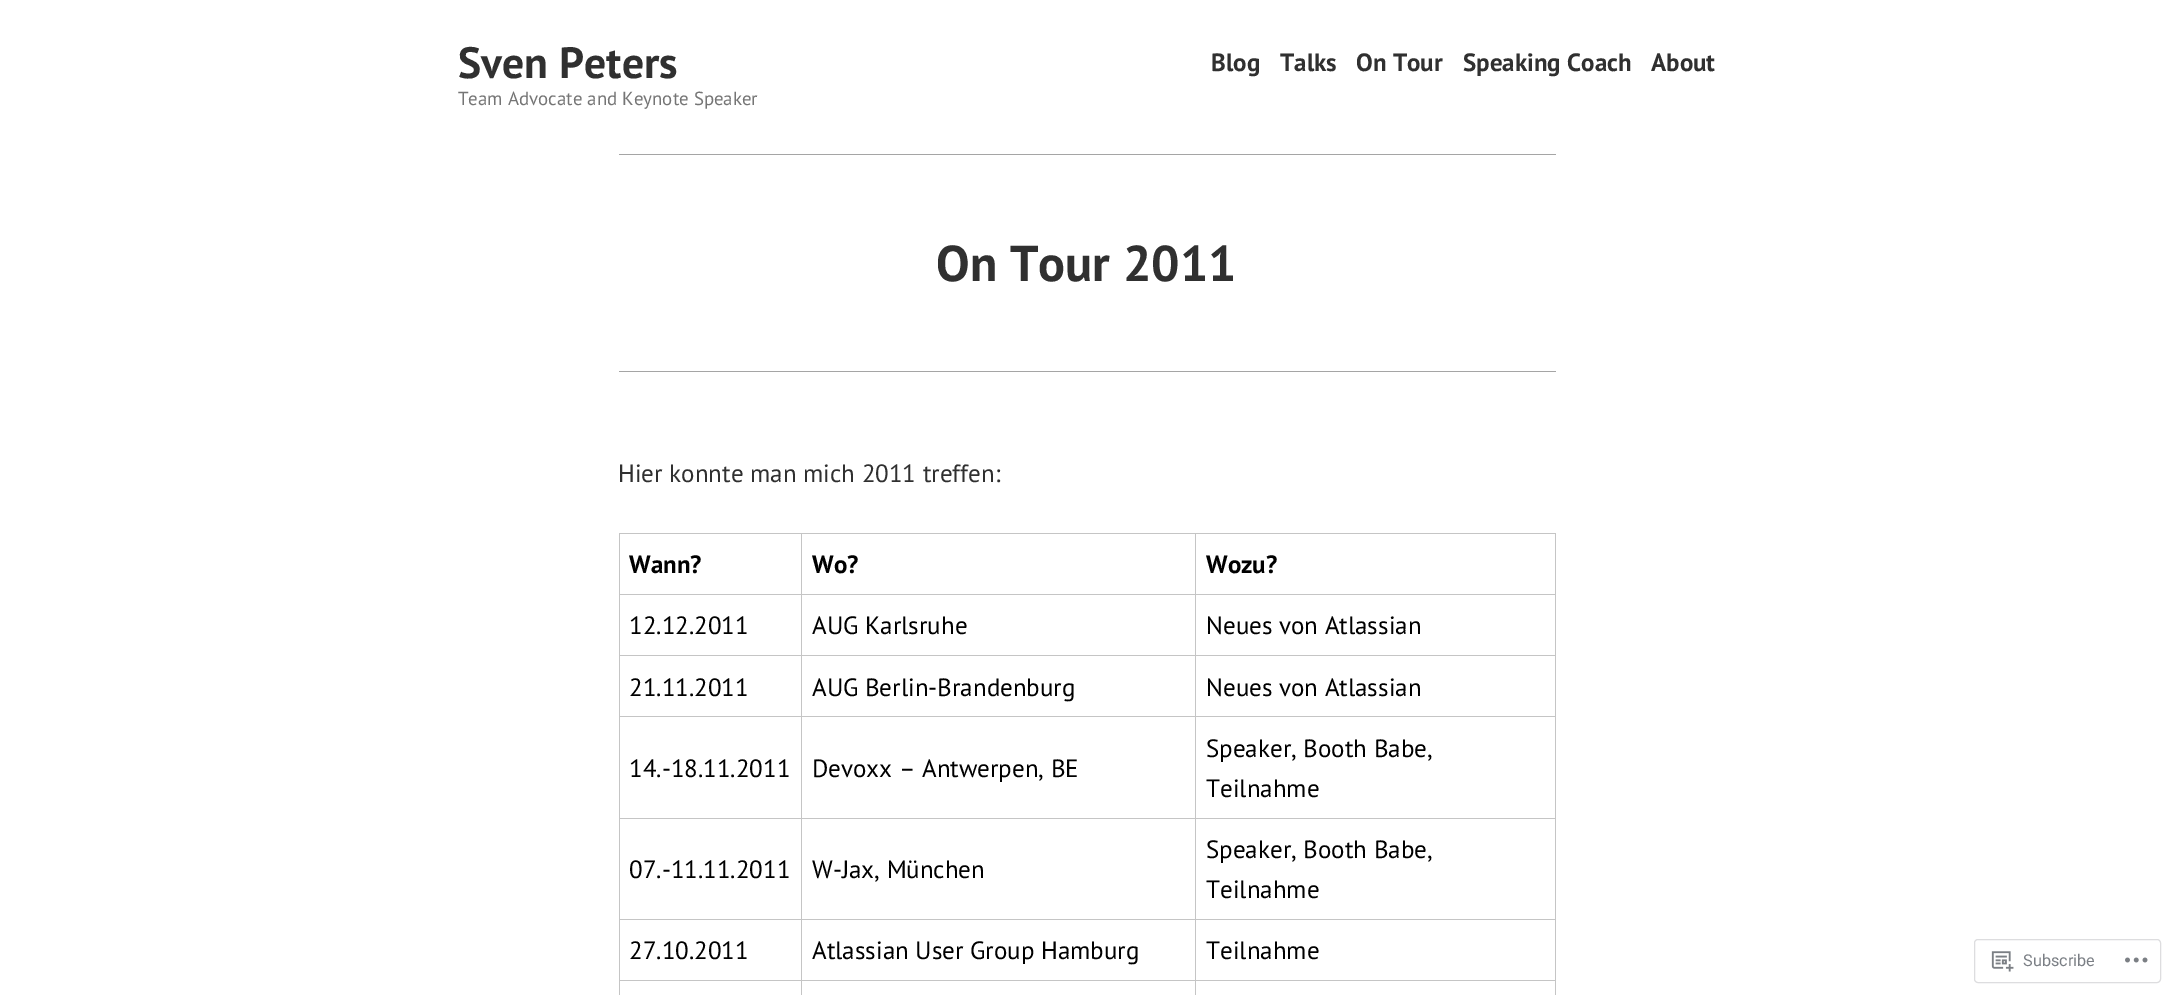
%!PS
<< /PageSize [2173 995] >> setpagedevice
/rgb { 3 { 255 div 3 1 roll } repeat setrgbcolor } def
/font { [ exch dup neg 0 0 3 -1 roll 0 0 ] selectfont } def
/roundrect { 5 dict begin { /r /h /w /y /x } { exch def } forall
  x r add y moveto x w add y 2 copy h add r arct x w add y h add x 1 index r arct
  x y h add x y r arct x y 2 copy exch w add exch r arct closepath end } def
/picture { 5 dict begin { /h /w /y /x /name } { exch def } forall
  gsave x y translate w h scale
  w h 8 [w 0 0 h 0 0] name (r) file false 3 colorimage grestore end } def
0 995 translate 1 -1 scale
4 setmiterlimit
255 255 255 rgb
0 0 2173 995 rectfill
[
  [619 154 937 1 165 165 165]
  [619 371 937 1 165 165 165]
  [1195 533 361 1 197 197 197]
  [1195 594 361 1 197 197 197]
  [1195 655 361 1 197 197 197]
  [1195 716 361 1 197 197 197]
  [1195 818 361 1 197 197 197]
  [1195 919 361 1 197 197 197]
  [1195 980 361 1 197 197 197]
  [1195 980 1 15 197 197 197]
  [801 980 395 1 197 197 197]
  [1195 919 1 62 197 197 197]
  [801 919 395 1 197 197 197]
  [1195 818 1 102 197 197 197]
  [801 818 395 1 197 197 197]
  [1195 716 1 103 197 197 197]
  [801 716 395 1 197 197 197]
  [1195 655 1 63 197 197 197]
  [801 655 395 1 197 197 197]
  [1195 594 1 62 197 197 197]
  [801 594 395 1 197 197 197]
  [1195 533 1 62 197 197 197]
  [801 533 395 1 197 197 197]
  [801 980 1 15 197 197 197]
  [619 980 184 1 197 197 197]
  [801 919 1 62 197 197 197]
  [619 919 184 1 197 197 197]
  [801 818 1 102 197 197 197]
  [619 818 184 1 197 197 197]
  [801 716 1 103 197 197 197]
  [619 716 184 1 197 197 197]
  [801 655 1 63 197 197 197]
  [619 655 184 1 197 197 197]
  [801 594 1 62 197 197 197]
  [619 594 184 1 197 197 197]
  [801 533 1 62 197 197 197]
  [619 533 184 1 197 197 197]
  [619 980 1 15 197 197 197]
  [619 919 1 62 197 197 197]
  [619 818 1 102 197 197 197]
  [619 716 1 103 197 197 197]
  [619 655 1 63 197 197 197]
  [619 594 1 62 197 197 197]
  [619 533 1 62 197 197 197]
  [1555 980 1 15 197 197 197]
  [1555 919 1 62 197 197 197]
  [1555 818 1 102 197 197 197]
  [1555 716 1 103 197 197 197]
  [1555 655 1 63 197 197 197]
  [1555 594 1 62 197 197 197]
  [1555 533 1 62 197 197 197]
] { aload pop rgb rectfill } forall
221 221 223 rgb
1974.5 939.5 186 43 3.5 roundrect stroke
(img/1.rgb) 1991 951 23 21 picture
(img/2.rgb) 2125 957 23 6 picture
/PTSans-Bold 43.75 font
48 48 48 rgb
458 78 moveto (Sven Peters) show
/PTSans-Bold 25 font
[
  [(Blog) 1211 71]
  [(Talks) 1280 71]
  [(On Tour) 1356 71]
  [(Speaking Coach) 1463 71]
  [(About) 1651 71]
] { aload pop moveto show } forall
/PTSans-Regular 18.9 font
117 117 117 rgb
458 105 moveto (Team Advocate and Keynote Speaker) show
/PTSans-Bold 50.25 font
48 48 48 rgb
936 281 moveto (On Tour 2011) show
/PTSans-Regular 25 font
618 482 moveto (Hier konnte man mich 2011 treffen:) show
/PTSans-Bold 25 font
0 0 0 rgb
[
  [(Wann?) 629 573]
  [(Wo?) 812 573]
  [(Wozu?) 1206 573]
] { aload pop moveto show } forall
/PTSans-Regular 25 font
[
  [(12.12.2011) 629 634]
  [(AUG Karlsruhe) 812 634]
  [(Neues von Atlassian) 1206 634]
  [(21.11.2011) 629 696]
  [(AUG Berlin-Brandenburg) 812 696]
  [(Neues von Atlassian) 1206 696]
  [(14.-18.11.2011) 629 777]
  [(Devoxx – Antwerpen, BE) 812 777]
  [(Speaker, Booth Babe,) 1206 757]
  [(Teilnahme) 1206 797]
  [(07.-11.11.2011) 629 878]
  [(W-Jax, München) 812 878]
  [(Speaker, Booth Babe,) 1206 858]
  [(Teilnahme) 1206 898]
  [(27.10.2011) 629 959]
  [(Atlassian User Group Hamburg) 812 959]
  [(Teilnahme) 1206 959]
] { aload pop moveto show } forall
/Roboto-Regular 16.25 font
123 127 133 rgb
2023 966 moveto (Subscribe) show
showpage
